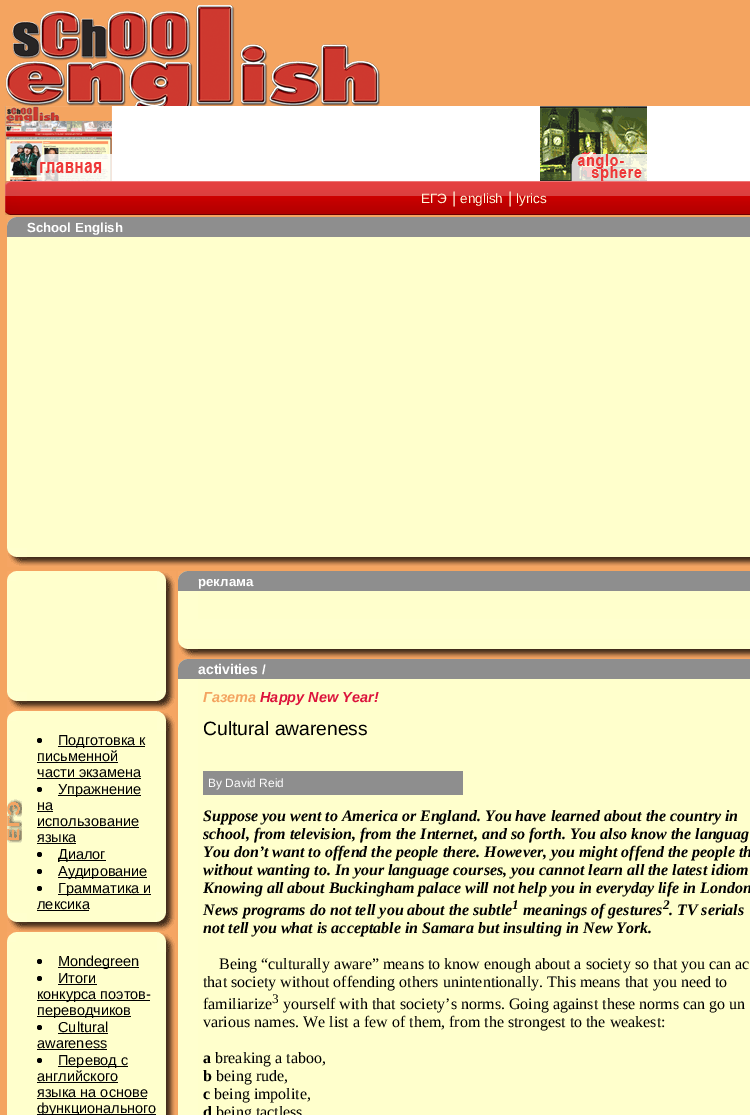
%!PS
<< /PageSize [750 1115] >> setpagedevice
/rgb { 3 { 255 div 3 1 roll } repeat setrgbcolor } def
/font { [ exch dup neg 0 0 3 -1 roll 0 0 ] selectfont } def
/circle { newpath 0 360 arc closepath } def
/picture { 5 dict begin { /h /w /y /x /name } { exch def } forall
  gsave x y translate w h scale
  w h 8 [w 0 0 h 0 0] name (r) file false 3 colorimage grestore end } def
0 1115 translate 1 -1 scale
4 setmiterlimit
244 164 96 rgb
0 0 750 1115 rectfill
(img/1.rgb) 5 5 375 101 picture
255 255 255 rgb
112 106 638 75 rectfill
(img/2.rgb) 5 106 107 75 picture
(img/3.rgb) 540 106 107 75 picture
(img/4.rgb) 5 181 15 34 picture
(img/5.rgb) 20 181 730 34 picture
142 142 142 rgb
7 217 743 20 rectfill
(img/6.rgb) 7 217 9 9 picture
[
  [7 237 743 290 255 255 204]
  [7 527 743 20 255 255 204]
  [7 547 20 1 255 255 204]
] { aload pop rgb rectfill } forall
(img/7.rgb) 7 548 20 19 picture
27 547 723 10 rectfill
(img/8.rgb) 27 557 723 10 picture
7 571 150 20 rectfill
(img/9.rgb) 7 571 9 10 picture
(img/10.rgb) 157 571 19 20 picture
7 591 159 100 rectfill
(img/11.rgb) 166 591 10 100 picture
7 691 20 1 rectfill
(img/7.rgb) 7 692 20 19 picture
27 691 129 10 rectfill
(img/12.rgb) 27 701 129 10 picture
(img/13.rgb) 156 691 20 20 picture
7 711 150 20 rectfill
(img/9.rgb) 7 711 9 10 picture
(img/10.rgb) 157 711 19 20 picture
7 731 159 181 rectfill
(img/14.rgb) 7 799 15 44 picture
(img/15.rgb) 166 731 10 181 picture
0 0 0 rgb
39.5 740.5 2.5 circle fill
[
  [58 746 87 1 0 0 0]
  [37 762 81 1 0 0 0]
  [37 778 104 1 0 0 0]
] { aload pop rgb rectfill } forall
39.5 789.5 2.5 circle fill
[
  [58 795 83 1 0 0 0]
  [37 811 16 1 0 0 0]
  [37 827 102 1 0 0 0]
  [37 843 39 1 0 0 0]
] { aload pop rgb rectfill } forall
39.5 854.5 2.5 circle fill
58 860 48 1 rectfill
39.5 871.5 2.5 circle fill
58 877 89 1 rectfill
39.5 888.5 2.5 circle fill
[
  [58 894 93 1 0 0 0]
  [37 910 52 1 0 0 0]
  [7 912 20 1 255 255 204]
] { aload pop rgb rectfill } forall
(img/7.rgb) 7 913 20 19 picture
27 912 129 10 rectfill
(img/12.rgb) 27 922 129 10 picture
(img/13.rgb) 156 912 20 20 picture
7 932 150 20 rectfill
(img/9.rgb) 7 932 9 10 picture
(img/10.rgb) 157 932 19 20 picture
7 952 159 163 rectfill
(img/16.rgb) 166 952 10 163 picture
0 0 0 rgb
39.5 961.5 2.5 circle fill
58 967 81 1 rectfill
39.5 978.5 2.5 circle fill
[
  [58 984 39 1 0 0 0]
  [37 1000 113 1 0 0 0]
  [37 1016 94 1 0 0 0]
] { aload pop rgb rectfill } forall
39.5 1027.5 2.5 circle fill
58 1033 50 1 rectfill
37 1049 70 1 rectfill
39.5 1060.5 2.5 circle fill
[
  [58 1066 70 1 0 0 0]
  [37 1082 81 1 0 0 0]
  [37 1098 110 1 0 0 0]
  [37 1114 119 1 0 0 0]
  [178 571 572 20 142 142 142]
] { aload pop rgb rectfill } forall
(img/6.rgb) 178 571 9 9 picture
[
  [178 591 20 48 255 255 206]
  [198 591 552 28 255 255 204]
  [198 619 552 20 255 255 206]
  [178 639 20 1 255 255 204]
] { aload pop rgb rectfill } forall
(img/7.rgb) 178 640 20 19 picture
198 639 552 10 rectfill
(img/17.rgb) 198 649 552 10 picture
142 142 142 rgb
178 659 572 20 rectfill
(img/6.rgb) 178 659 9 9 picture
[
  [178 679 20 436 255 255 206]
  [198 679 552 436 255 255 204]
  [203 771 260 24 142 142 142]
] { aload pop rgb rectfill } forall
/LiberationSans-Regular 13.5 font
255 248 220 rgb
421 203 moveto (ЕГЭ) show
/LiberationSans-Regular 16 font
452 203 moveto (|) show
/LiberationSans-Regular 13.5 font
460 203 moveto (english) show
/LiberationSans-Regular 16 font
508 203 moveto (|) show
/LiberationSans-Regular 13.5 font
516 203 moveto (lyrics) show
/LiberationSans-Bold 13.25 font
255 255 255 rgb
27 232 moveto (School English) show
/LiberationSans-Regular 14.5 font
0 0 0 rgb
[
  [(Подготовка к) 58 745]
  [(письменной) 37 761]
  [(части экзамена) 37 777]
  [(Упражнение) 58 794]
  [(на) 37 810]
  [(использование) 37 826]
  [(языка) 37 842]
  [(Диалог) 58 859]
  [(Аудирование) 58 876]
  [(Грамматика и) 58 893]
  [(лексика) 37 909]
  [(Mondegreen) 58 966]
  [(Итоги) 58 983]
  [(конкурса поэтов-) 37 999]
  [(переводчиков) 37 1015]
  [(Cultural) 58 1032]
  [(awareness) 37 1048]
  [(Перевод с) 58 1065]
  [(английского) 37 1081]
  [(языка на основе) 37 1097]
  [(функционального) 37 1113]
] { aload pop moveto show } forall
/LiberationSans-Bold 13.25 font
255 255 255 rgb
198 586 moveto (реклама) show
/LiberationSans-Bold 14 font
198 674 moveto (activities) show
/LiberationSans-Bold 13.25 font
262 674 moveto (/) show
/LiberationSans-BoldItalic 14.5 font
244 164 96 rgb
203 702 moveto (Газета) show
220 20 60 rgb
260 702 moveto (Happy New Year!) show
/LiberationSans-Regular 19.25 font
0 0 0 rgb
203 735 moveto (Cultural awareness) show
/LiberationSans-Regular 12 font
255 255 255 rgb
208 787 moveto (By David Reid) show
/LiberationSerif-BoldItalic 16 font
0 0 0 rgb
[
  [(Suppose you went to America or England. You have learned about the country in) 203 821]
  [(school, from television, from the Internet, and so forth. You also know the languag) 203 839]
  [(You don’t want to offend the people there. However, you might offend the people th) 203 857]
  [(without wanting to. In your language courses, you cannot learn all the latest idiom) 203 875]
  [(Knowing all about Buckingham palace will not help you in everyday life in London) 203 893]
  [(News programs do not tell you about the subtle) 203 915]
] { aload pop moveto show } forall
/LiberationSerif-BoldItalic 13.25 font
512 909 moveto (1) show
/LiberationSerif-BoldItalic 16 font
523 915 moveto (meanings of gestures) show
/LiberationSerif-BoldItalic 13.25 font
663 909 moveto (2) show
/LiberationSerif-BoldItalic 16 font
669 915 moveto (. TV serials) show
203 933 moveto (not tell you what is acceptable in Samara but insulting in New York.) show
/LiberationSerif-Regular 16 font
[
  [(Being “culturally aware” means to know enough about a society so that you can ac) 219 969]
  [(that society without offending others unintentionally. This means that you need to) 203 987]
  [(familiarize) 203 1009]
] { aload pop moveto show } forall
/LiberationSerif-Regular 13.25 font
272 1003 moveto (3) show
/LiberationSerif-Regular 16 font
283 1009 moveto (yourself with that society’s norms. Going against these norms can go un) show
203 1027 moveto (various names. We list a few of them, from the strongest to the weakest:) show
/LiberationSerif-Bold 16 font
203 1063 moveto (a) show
/LiberationSerif-Regular 16 font
215 1063 moveto (breaking a taboo,) show
/LiberationSerif-Bold 16 font
203 1081 moveto (b) show
/LiberationSerif-Regular 16 font
216 1081 moveto (being rude,) show
/LiberationSerif-Bold 16 font
203 1099 moveto (c) show
/LiberationSerif-Regular 16 font
214 1099 moveto (being impolite,) show
/LiberationSerif-Bold 16 font
203 1117 moveto (d) show
/LiberationSerif-Regular 16 font
216 1117 moveto (being tactless) show
showpage
